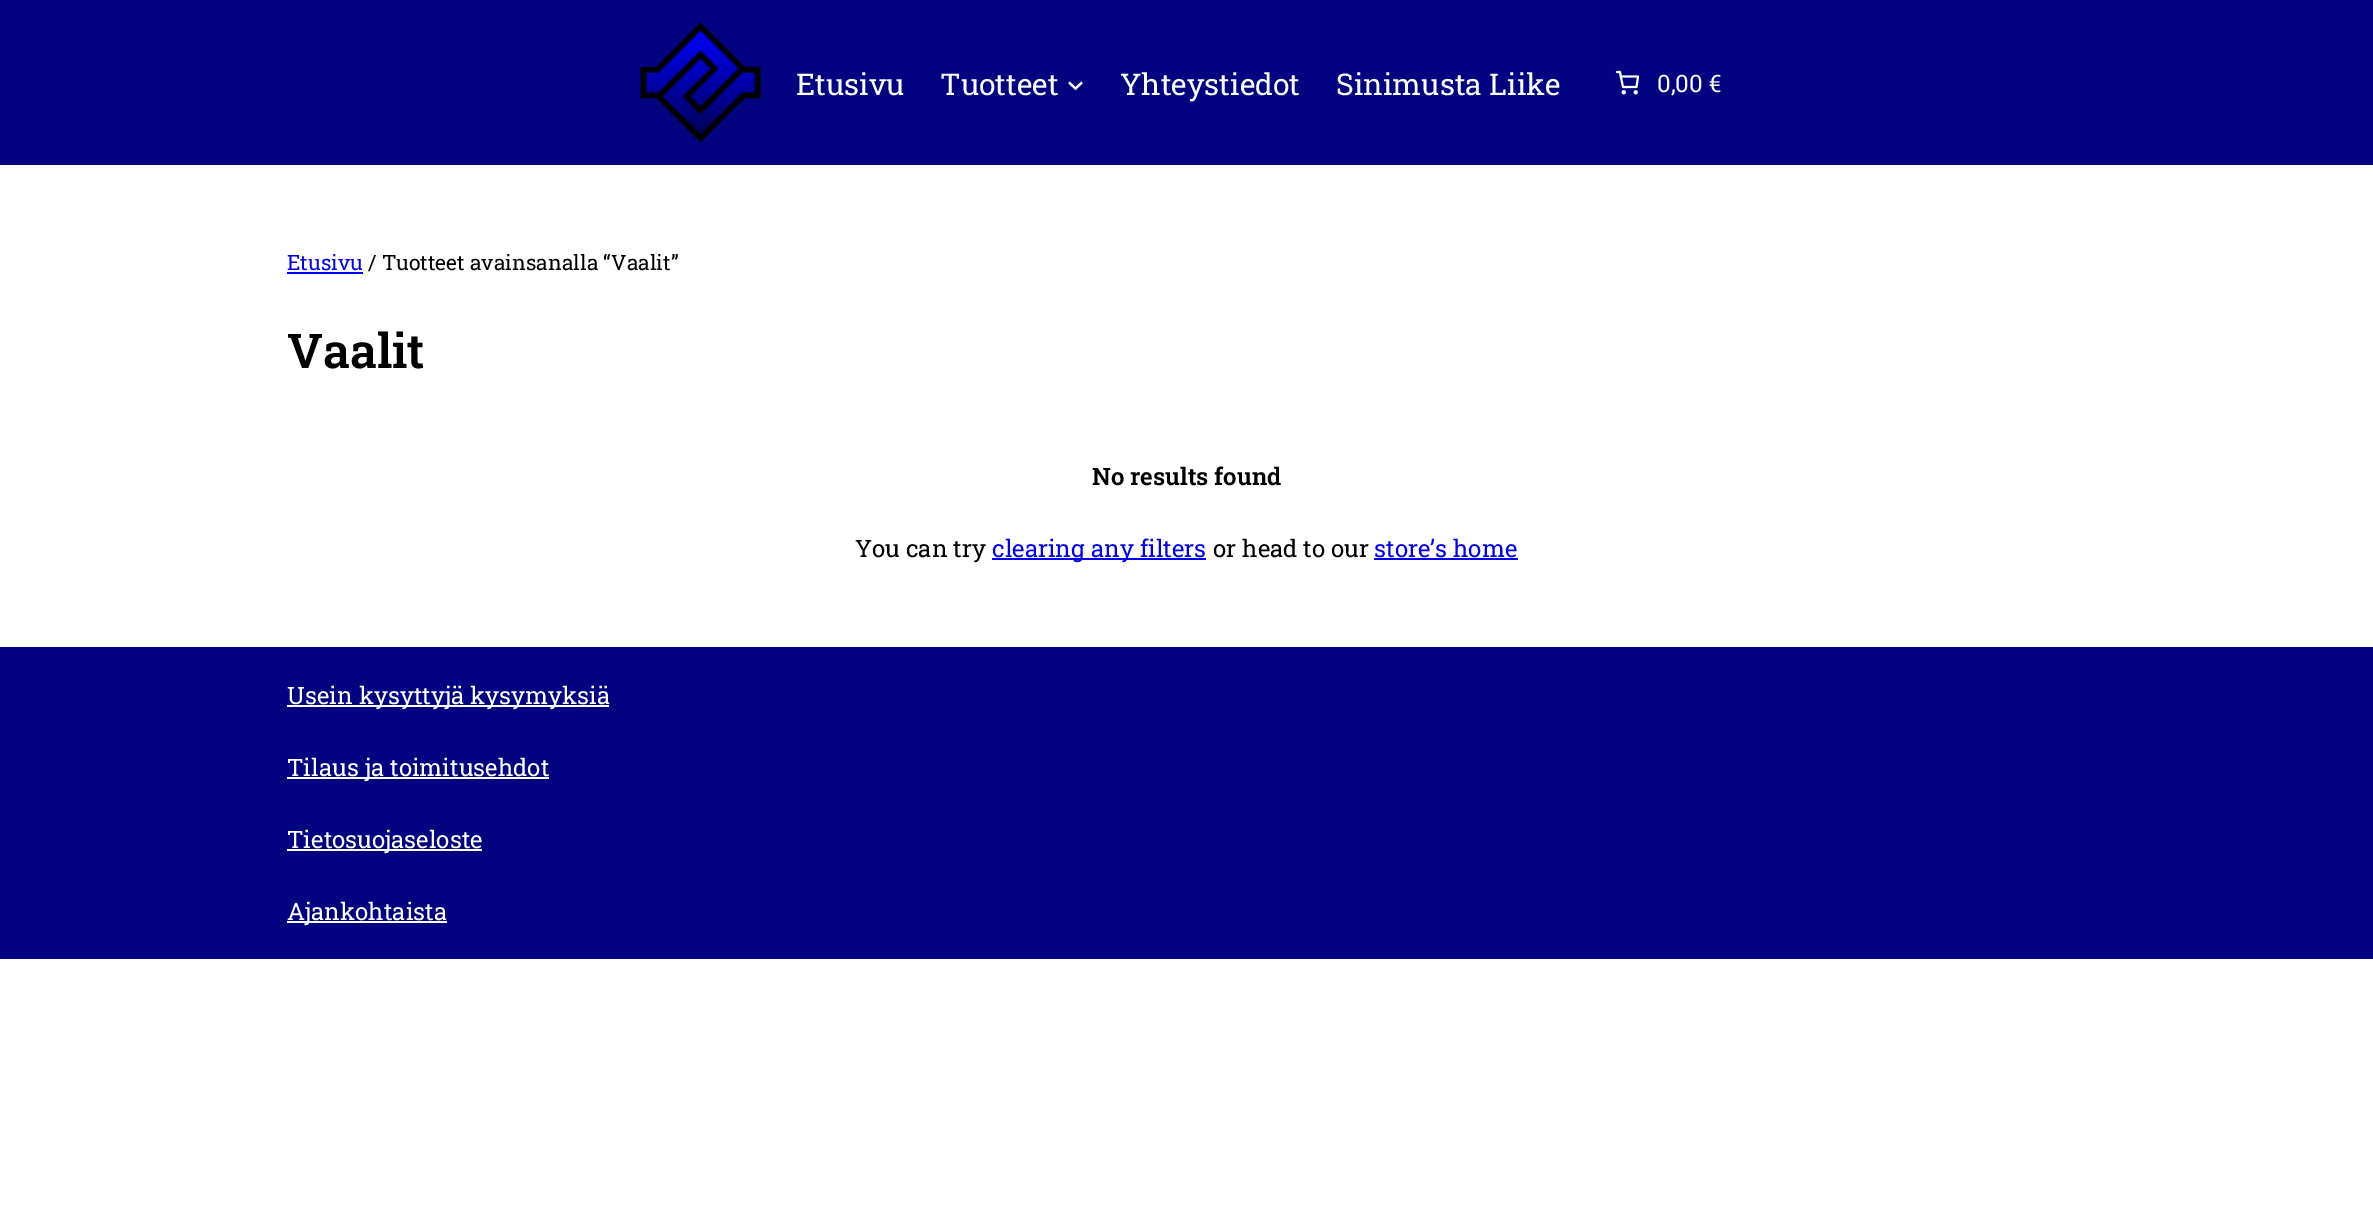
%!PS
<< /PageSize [2373 1212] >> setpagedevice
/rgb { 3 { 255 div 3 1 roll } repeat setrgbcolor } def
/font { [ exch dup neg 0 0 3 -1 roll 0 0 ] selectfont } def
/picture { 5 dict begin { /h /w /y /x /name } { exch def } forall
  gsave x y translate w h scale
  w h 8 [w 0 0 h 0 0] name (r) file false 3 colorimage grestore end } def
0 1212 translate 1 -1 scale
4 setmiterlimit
255 255 255 rgb
0 0 2373 1212 rectfill
3 3 130 rgb
0 0 2373 165 rectfill
(img/1.rgb) 640 22 121 121 picture
255 255 255 rgb
2.2 setlinewidth
1069 82.5 moveto 1075.5 88.5 lineto 1082 82.5 lineto stroke
(img/2.rgb) 1615 70 25 25 picture
[
  [287 272 76 2 0 0 238]
  [992 558 214 2 0 0 238]
  [1374 558 144 2 0 0 238]
  [0 647 2373 312 3 3 130]
  [287 705 322 2 255 255 255]
  [287 777 262 2 255 255 255]
  [287 849 195 2 255 255 255]
  [287 921 160 2 255 255 255]
] { aload pop rgb rectfill } forall
/RobotoSlab-Regular 30 font
[
  [(Etusivu) 796 95]
  [(Tuotteet) 940 95]
  [(Yhteystiedot) 1120 95]
  [(Sinimusta Liike) 1336 95]
] { aload pop moveto show } forall
/RobotoSlab-Regular 24 font
1657 92 moveto (0,00 €) show
/RobotoSlab-Regular 21 font
0 0 238 rgb
287 270 moveto (Etusivu) show
0 0 0 rgb
368 270 moveto (/ Tuotteet avainsanalla “Vaalit”) show
/RobotoSlab-SemiBold 48 font
287 368 moveto (Vaalit) show
/RobotoSlab-SemiBold 24 font
1092 485 moveto (No results found) show
/RobotoSlab-Regular 24 font
855 557 moveto (You can try) show
0 0 238 rgb
992 557 moveto (clearing any filters) show
0 0 0 rgb
1213 557 moveto (or head to our) show
0 0 238 rgb
1374 557 moveto (store’s home) show
255 255 255 rgb
[
  [(Usein kysyttyjä kysymyksiä) 287 704]
  [(Tilaus ja toimitusehdot) 287 776]
  [(Tietosuojaseloste) 287 848]
  [(Ajankohtaista) 287 920]
] { aload pop moveto show } forall
showpage
